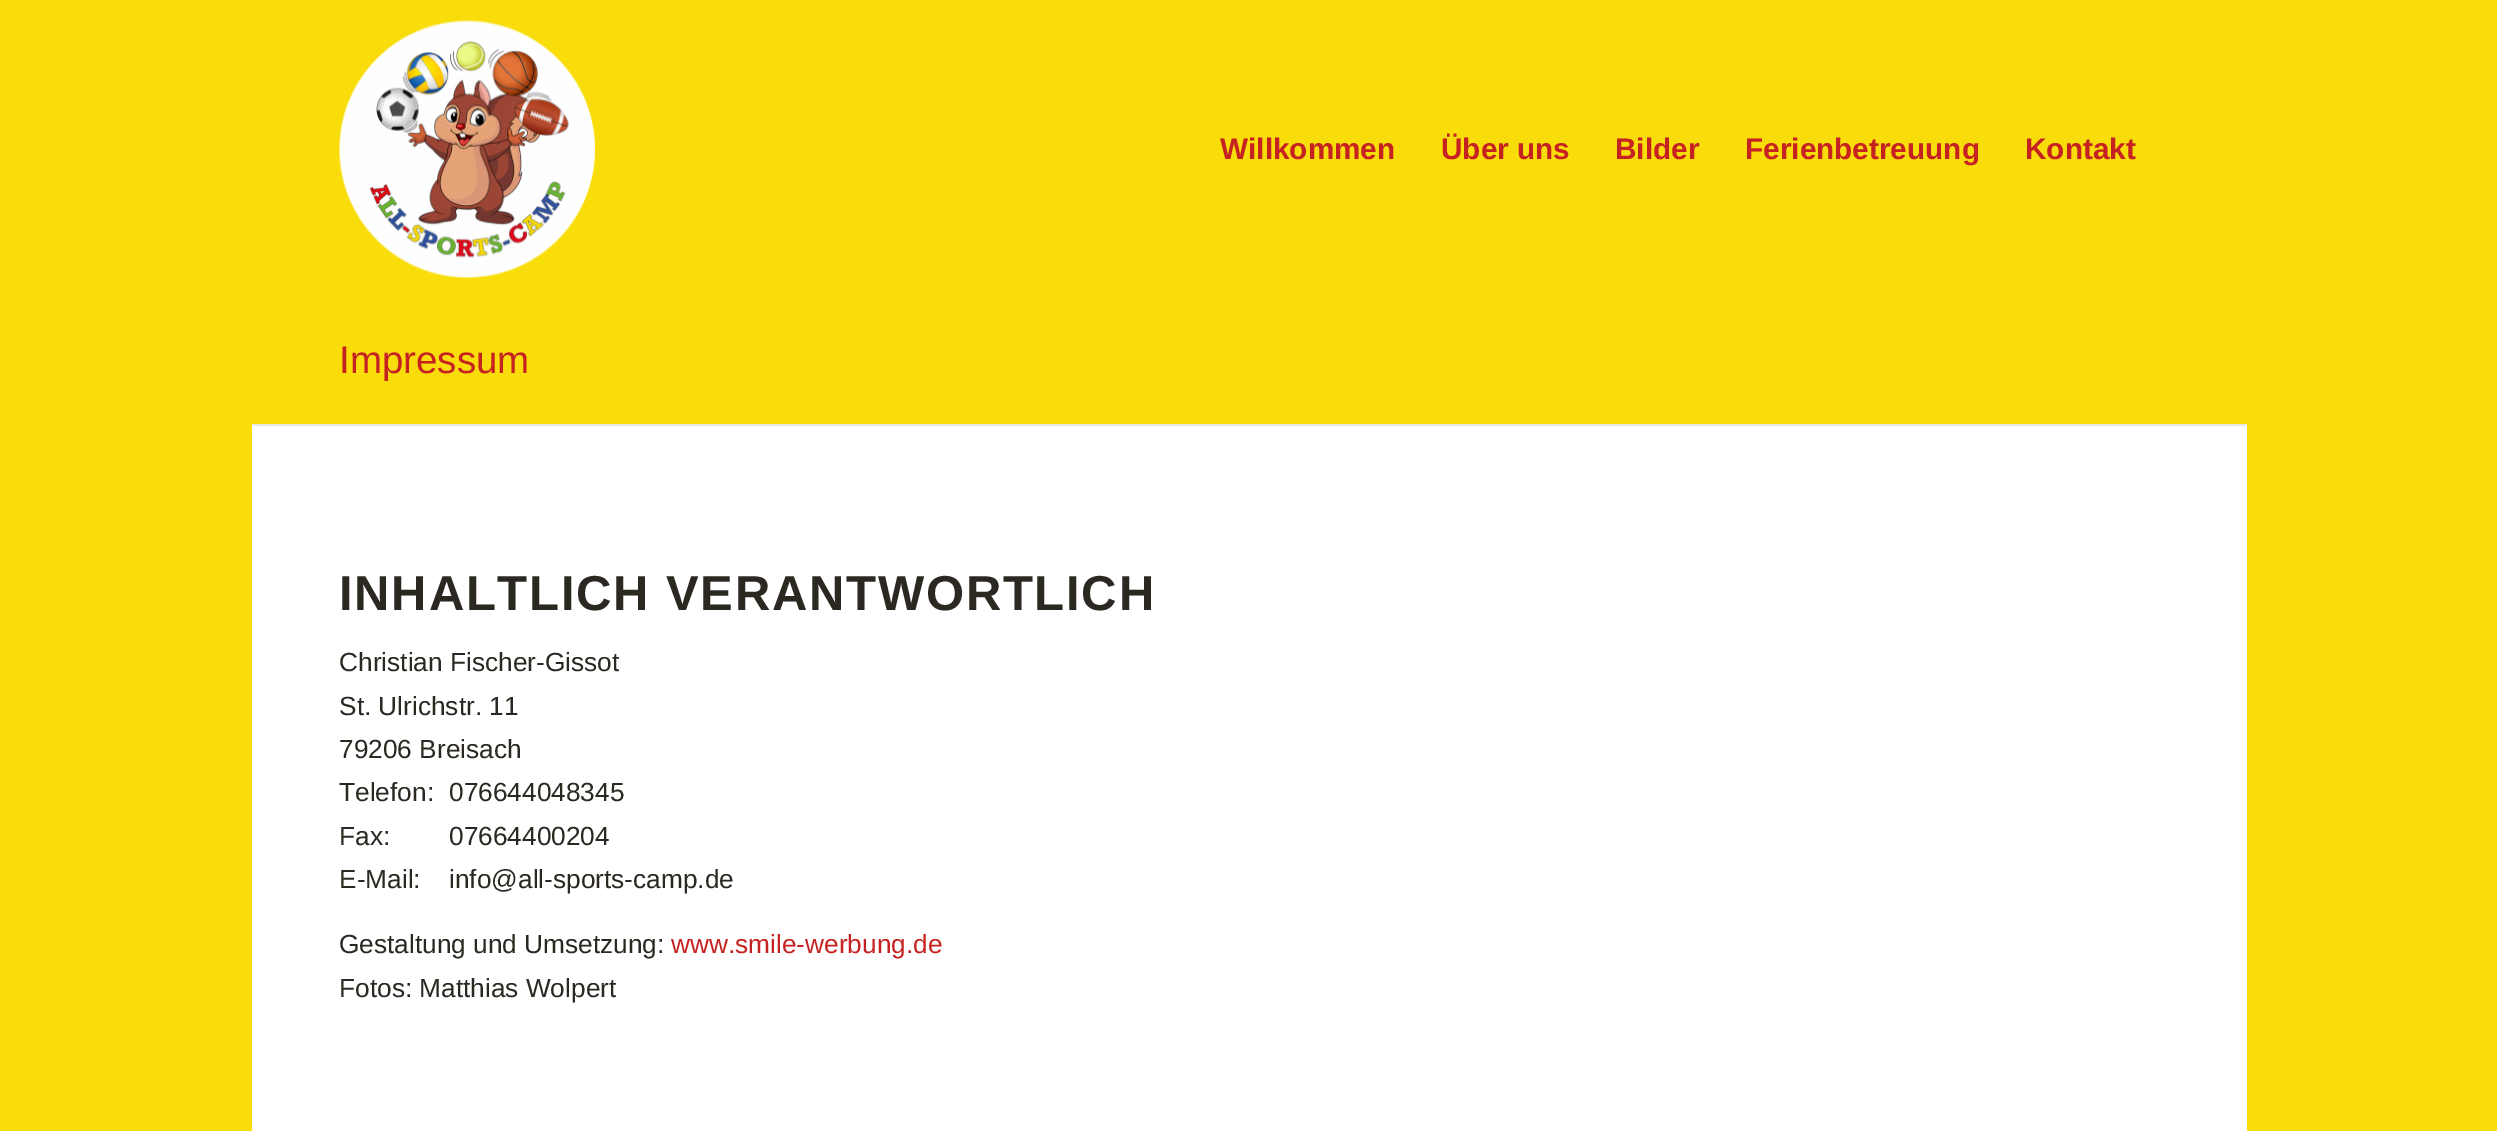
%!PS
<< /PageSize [2497 1131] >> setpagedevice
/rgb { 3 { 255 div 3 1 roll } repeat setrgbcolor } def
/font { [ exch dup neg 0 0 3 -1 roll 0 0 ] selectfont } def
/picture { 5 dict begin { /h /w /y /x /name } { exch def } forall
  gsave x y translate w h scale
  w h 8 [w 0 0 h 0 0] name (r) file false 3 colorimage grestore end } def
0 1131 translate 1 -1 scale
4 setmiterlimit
249 221 10 rgb
0 0 2497 1131 rectfill
(img/1.rgb) 339 20 256 258 picture
255 255 255 rgb
252 426 1995 705 rectfill
235 232 226 rgb
252 424 1995 2 rectfill
/LiberationSans-Bold 29.75 font
199 34 34 rgb
[
  [(Willkommen) 1220 159]
  [(Über uns) 1441 159]
  [(Bilder) 1615 159]
  [(Ferienbetreuung) 1745 159]
  [(Kontakt) 2025 159]
] { aload pop moveto show } forall
/LiberationSans-Regular 38.5 font
339 373 moveto (Impressum) show
/LiberationSans-Bold 49 font
43 40 34 rgb
339 610 moveto 1.75 0 (INHALTLICH VERANTWORTLICH) ashow
/LiberationSans-Regular 26.25 font
[
  [(Christian Fischer-Gissot) 339 671]
  [(St. Ulrichstr. 11) 339 715]
  [(79206 Breisach) 339 758]
  [(Telefon:) 339 801]
  [(076644048345) 449 801]
  [(Fax:) 339 845]
  [(07664400204) 449 845]
  [(E-Mail:) 339 888]
  [(info@all-sports-camp.de) 449 888]
  [(Gestaltung und Umsetzung:) 339 953]
] { aload pop moveto show } forall
199 34 34 rgb
671 953 moveto (www.smile-werbung.de) show
43 40 34 rgb
339 997 moveto (Fotos: Matthias Wolpert) show
showpage
